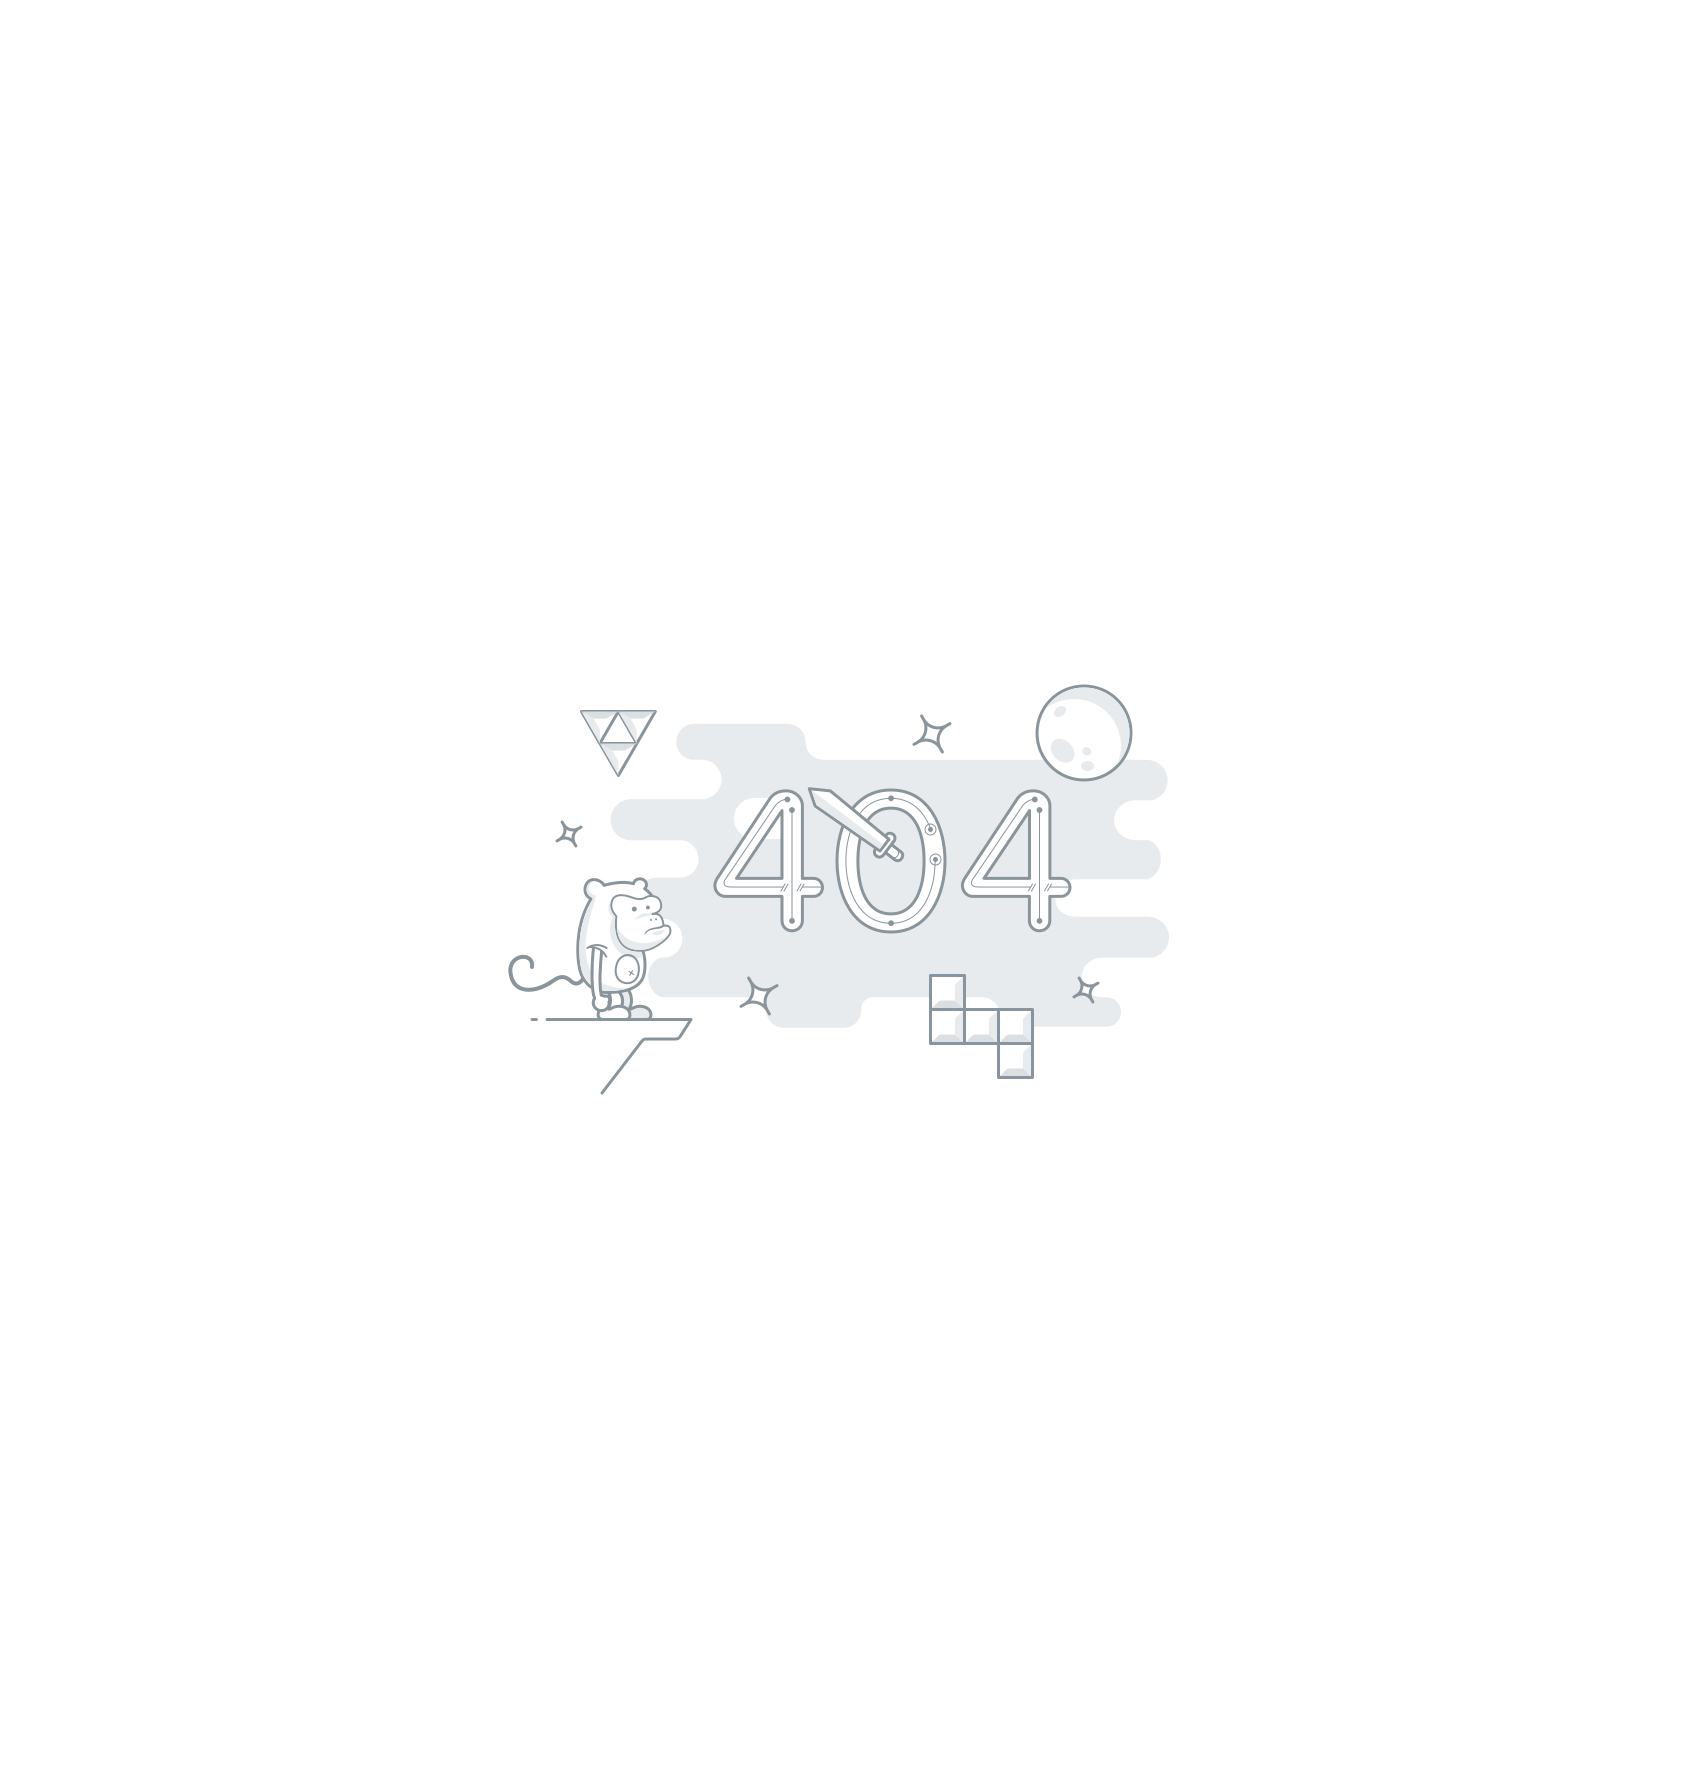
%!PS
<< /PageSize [1686 1783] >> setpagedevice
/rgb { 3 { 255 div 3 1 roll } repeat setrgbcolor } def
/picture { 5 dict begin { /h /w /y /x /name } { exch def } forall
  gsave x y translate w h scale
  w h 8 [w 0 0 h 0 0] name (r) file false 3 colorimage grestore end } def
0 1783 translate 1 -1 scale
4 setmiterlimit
255 255 255 rgb
0 0 1686 1783 rectfill
(img/1.rgb) 508 684 661 411 picture
showpage
